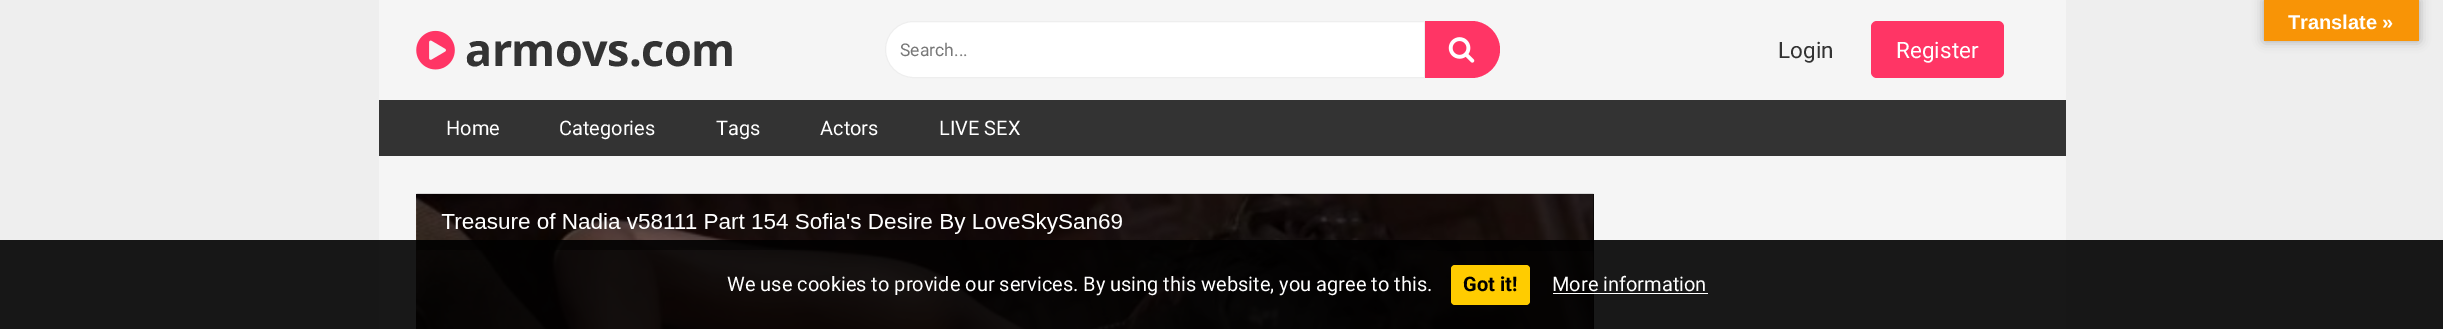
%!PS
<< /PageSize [2443 329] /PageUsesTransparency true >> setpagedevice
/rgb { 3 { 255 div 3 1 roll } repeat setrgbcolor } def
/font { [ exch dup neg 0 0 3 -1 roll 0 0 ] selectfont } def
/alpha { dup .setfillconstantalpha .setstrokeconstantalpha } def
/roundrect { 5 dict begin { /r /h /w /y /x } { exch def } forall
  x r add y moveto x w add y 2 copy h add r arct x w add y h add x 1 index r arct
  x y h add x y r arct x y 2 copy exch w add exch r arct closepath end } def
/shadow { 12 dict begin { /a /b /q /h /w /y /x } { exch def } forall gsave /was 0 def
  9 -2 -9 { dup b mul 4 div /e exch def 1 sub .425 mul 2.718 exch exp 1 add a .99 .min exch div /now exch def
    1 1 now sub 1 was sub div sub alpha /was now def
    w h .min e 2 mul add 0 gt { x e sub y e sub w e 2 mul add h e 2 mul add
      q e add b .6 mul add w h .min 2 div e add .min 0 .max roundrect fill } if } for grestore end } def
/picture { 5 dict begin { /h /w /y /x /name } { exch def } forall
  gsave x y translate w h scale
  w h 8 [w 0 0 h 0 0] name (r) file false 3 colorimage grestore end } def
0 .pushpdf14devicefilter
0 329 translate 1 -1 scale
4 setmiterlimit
238 238 238 rgb
0 0 2443 329 rectfill
0 0 0 rgb
2264 0 155 41 0 5.5 0.3 shadow
248 148 6 rgb
2264 0 155 41 rectfill
245 245 245 rgb
379 0 1687 100 rectfill
(img/1.rgb) 416 30 39 40 picture
255 53 101 rgb
1871 21 133 57 6 roundrect fill
51 51 51 rgb
379 100 1687 56 rectfill
255 255 255 rgb
913.5 21.5 moveto 1424.5 21.5 lineto 1424.5 77.5 lineto 913.5 77.5 lineto 898 77.5 885.5 65 885.5 49.5 curveto 885.5 34 898 21.5 913.5 21.5 curveto closepath gsave fill grestore
238 238 238 rgb
stroke
255 53 101 rgb
1425 21 moveto 1471.5 21 lineto 1487 21 1500 34 1500 49.5 curveto 1500 65 1487 78 1471.5 78 curveto 1425 78 lineto closepath fill
(img/2.rgb) 1448 37 27 26 picture
245 245 245 rgb
379 156 1687 173 rectfill
(img/3.rgb) 416 193 1178 136 picture
0.9 alpha
0 0 0 rgb
0 240 2443 89 rectfill
1 alpha
255 204 0 rgb
1451 265 79 40 4 roundrect fill
255 255 255 rgb
1553 293 155 1 rectfill
/LiberationSans-Bold 20 font
2288 29 moveto (Translate ») show
/OpenSans-Bold 45 font
51 51 51 rgb
465 66 moveto -0.6 0 (armovs.com) ashow
/Roboto-Regular 22.5 font
1778 58 moveto (Login) show
255 255 255 rgb
1896 58 moveto (Register) show
/Roboto-Regular 20 font
[
  [(Home) 446 135]
  [(Categories) 559 135]
  [(Tags) 716 135]
  [(Actors) 820 135]
  [(LIVE SEX) 939 135]
] { aload pop moveto show } forall
/Roboto-Regular 17.5 font
119 119 119 rgb
900 56 moveto (Search...) show
/Roboto-Regular 20 font
255 255 255 rgb
727 291 moveto (We use cookies to provide our services. By using this website, you agree to this.) show
/Roboto-Bold 20 font
0 0 0 rgb
1463 291 moveto (Got it!) show
/Roboto-Regular 20 font
255 255 255 rgb
1552 291 moveto (More information) show
.poppdf14devicefilter showpage
